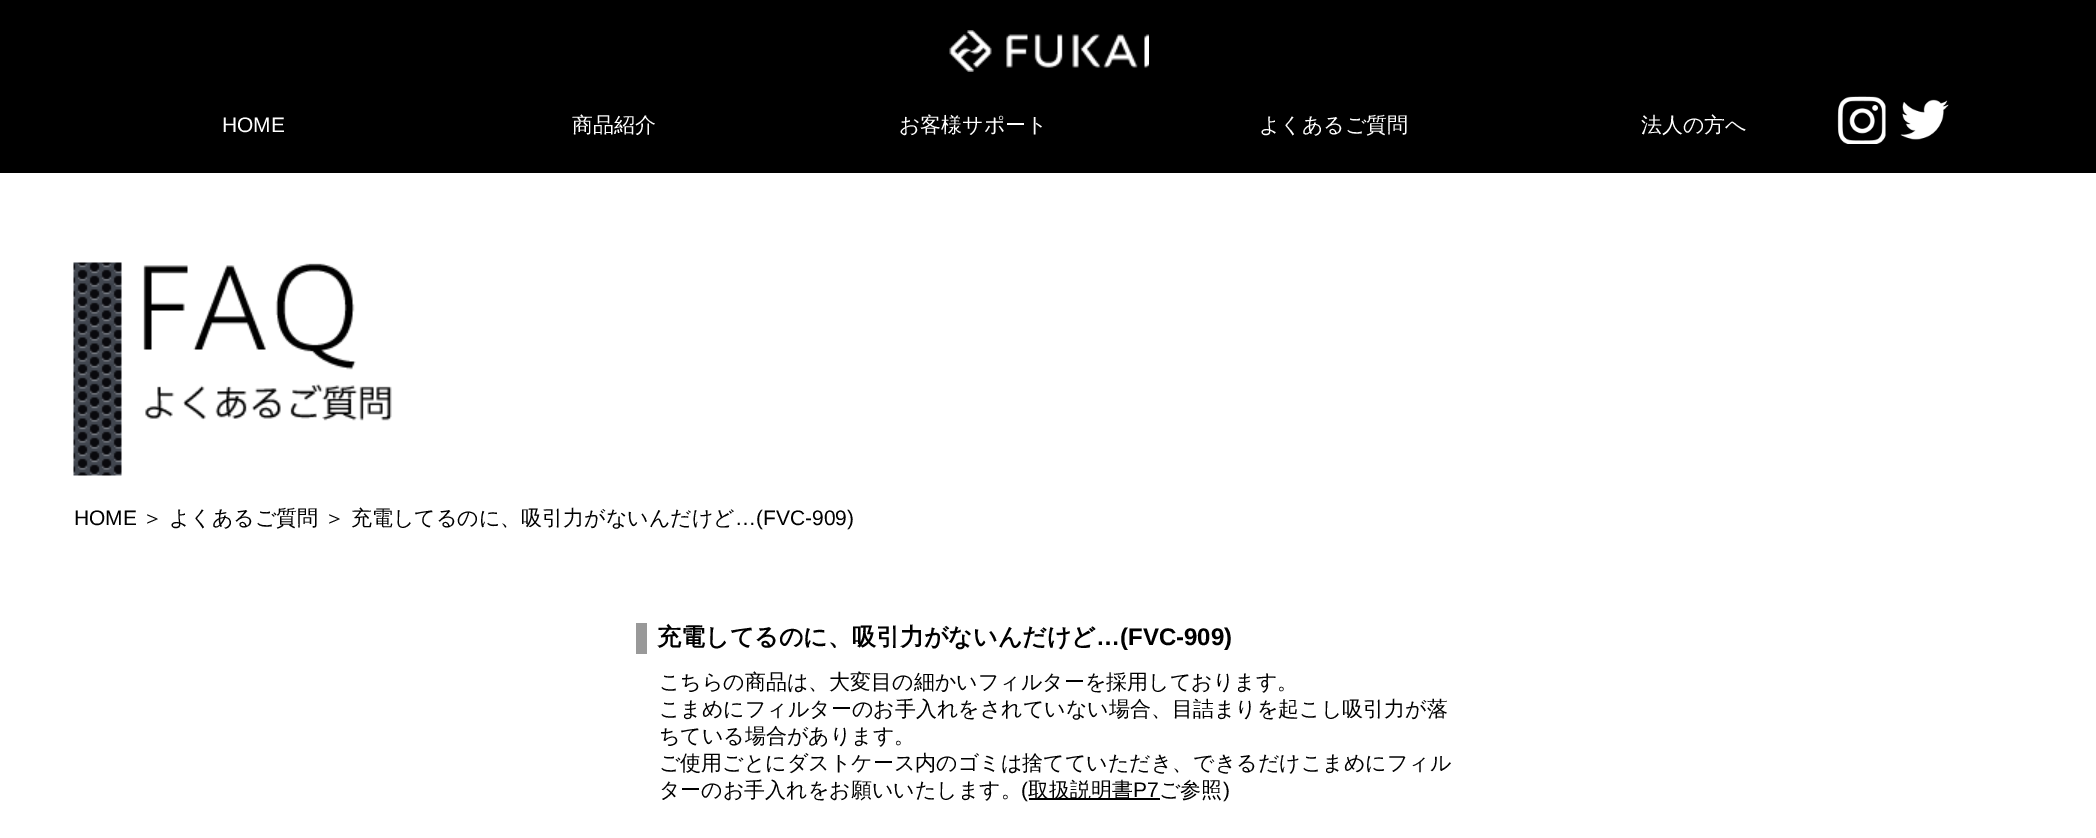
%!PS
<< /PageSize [2096 838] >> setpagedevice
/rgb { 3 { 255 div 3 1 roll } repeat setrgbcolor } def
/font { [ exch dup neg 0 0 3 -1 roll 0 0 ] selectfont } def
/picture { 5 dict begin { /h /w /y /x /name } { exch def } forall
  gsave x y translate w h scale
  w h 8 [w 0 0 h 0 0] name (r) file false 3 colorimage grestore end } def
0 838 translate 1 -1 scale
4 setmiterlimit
255 255 255 rgb
0 0 2096 838 rectfill
0 0 0 rgb
0 0 2096 173 rectfill
(img/1.rgb) 949 30 200 42 picture
(img/2.rgb) 1837 96 49 48 picture
(img/3.rgb) 1900 99 49 41 picture
(img/4.rgb) 73 262 319 214 picture
153 153 153 rgb
636 623 11 31 rectfill
0 0 0 rgb
1029 798 131 2 rectfill
/LiberationSans-Regular 21 font
255 255 255 rgb
222 132 moveto (HOME) show
/WenQuanYiZenHei-Medium 21 font
[
  [(商品紹介) 572 132]
  [(お客様サポート) 899 132]
  [(よくあるご質問) 1259 132]
  [(法人の方へ) 1641 132]
] { aload pop moveto show } forall
/LiberationSans-Regular 21 font
0 0 0 rgb
74 525 moveto (HOME) show
/WenQuanYiZenHei-Medium 21 font
[
  [(＞) 142 525]
  [(よくあるご質問) 169 525]
  [(＞) 324 525]
  [(充電してるのに、吸引力がないんだけど) 351 525]
] { aload pop moveto show } forall
/LiberationSans-Regular 21 font
735 525 moveto (…\(FVC-909\)) show
/WenQuanYiZenHei-Bold 24 font
657 645 moveto (充電してるのに、吸引力がないんだけど) show
/LiberationSans-Bold 24 font
1096 645 moveto (…\(FVC-909\)) show
/WenQuanYiZenHei-Medium 21 font
[
  [(こちらの商品は、大変目の細かいフィルターを採用しております。) 659 689]
  [(こまめにフィルターのお手入れをされていない場合、目詰まりを起こし吸引力が落) 659 716]
  [(ちている場合があります。) 659 743]
  [(ご使用ごとにダストケース内のゴミは捨てていただき、できるだけこまめにフィル) 659 770]
  [(ターのお手入れをお願いいたします。) 659 797]
] { aload pop moveto show } forall
/LiberationSans-Regular 21 font
1021 797 moveto (\() show
/WenQuanYiZenHei-Medium 21 font
1028 797 moveto (取扱説明書) show
/LiberationSans-Regular 21 font
1133 797 moveto (P7) show
/WenQuanYiZenHei-Medium 21 font
1159 797 moveto (ご参照) show
/LiberationSans-Regular 21 font
1223 797 moveto (\)) show
showpage
